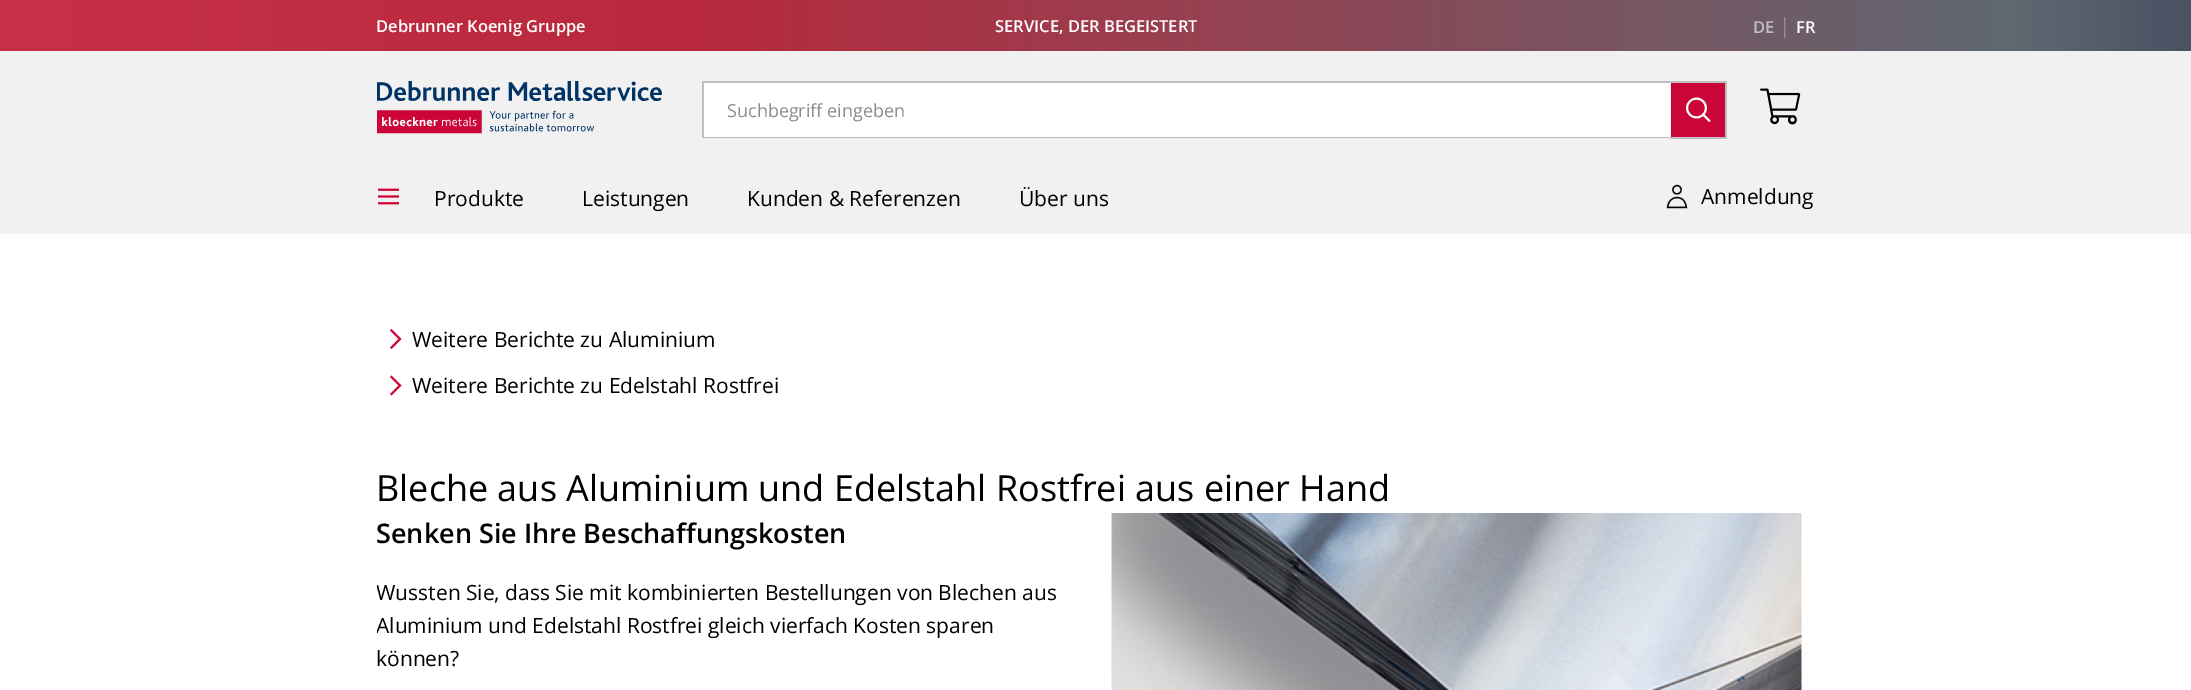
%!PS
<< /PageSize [2191 690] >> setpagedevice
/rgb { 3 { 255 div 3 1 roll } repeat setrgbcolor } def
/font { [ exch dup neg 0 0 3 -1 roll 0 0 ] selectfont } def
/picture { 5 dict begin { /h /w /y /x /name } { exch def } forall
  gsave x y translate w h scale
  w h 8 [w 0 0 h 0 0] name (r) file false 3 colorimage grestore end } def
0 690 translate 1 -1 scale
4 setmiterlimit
255 255 255 rgb
0 0 2191 690 rectfill
gsave 0 0 moveto 2191 0 lineto 2191 51 lineto 0 51 lineto closepath clip newpath
<< /ShadingType 2 /ColorSpace /DeviceRGB /Coords [0 26 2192 25] /Extend [true true] /Function << /FunctionType 3 /Domain [0 1] /Functions [<< /FunctionType 2 /Domain [0 1] /C0 [0.78 0.192 0.278] /C1 [0.725 0.157 0.239] /N 1 >> << /FunctionType 2 /Domain [0 1] /C0 [0.725 0.157 0.239] /C1 [0.369 0.408 0.443] /N 1 >> << /FunctionType 2 /Domain [0 1] /C0 [0.369 0.408 0.443] /C1 [0.286 0.318 0.388] /N 1 >>] /Bounds [0.31 0.92] /Encode [0 1 0 1 0 1] >> >> shfill grestore
241 241 241 rgb
0 51 2191 183 rectfill
(img/1.rgb) 377 81 285 53 picture
[
  [704 83 966 54 255 255 255]
  [702 81 1025 2 190 190 190]
  [702 137 968 1 190 190 190]
  [702 81 2 57 190 190 190]
  [1725 81 2 57 190 190 190]
  [1670 137 57 2 190 190 190]
  [1671 83 54 54 203 5 56]
] { aload pop rgb rectfill } forall
(img/2.rgb) 1686 97 25 26 picture
(img/3.rgb) 1760 88 41 37 picture
(img/4.rgb) 378 188 21 17 picture
(img/5.rgb) 1666 184 22 25 picture
391.5 349 moveto 390 347.5 lineto 398.5 339 lineto 390 330.5 lineto 391.5 329 lineto 401.5 339 lineto closepath fill
391.5 395.5 moveto 390 394 lineto 398.5 385.5 lineto 390 377 lineto 391.5 375.5 lineto 401.5 385.5 lineto closepath fill
(img/6.rgb) 1111 513 691 177 picture
/OpenSans-SemiBold 16.5 font
255 255 255 rgb
376 32 moveto (Debrunner Koenig Gruppe) show
995 32 moveto (SERVICE, DER BEGEISTERT) show
190 190 190 rgb
1753 33 moveto (DE) show
/OpenSans-Regular 21 font
141 141 141 rgb
1779 33 moveto (|) show
/OpenSans-SemiBold 16.5 font
255 255 255 rgb
1796 33 moveto (FR) show
gsave
728 98 918 25 rectclip
/OpenSans-Regular 18 font
141 141 141 rgb
727 117 moveto (Suchbegriff eingeben) show
grestore
/OpenSans-Regular 21 font
0 0 0 rgb
[
  [(Produkte) 434 206]
  [(Leistungen) 582 206]
  [(Kunden & Referenzen) 747 206]
  [(Über uns) 1019 206]
  [(Anmeldung) 1701 204]
  [(Weitere Berichte zu Aluminium) 412 347]
  [(Weitere Berichte zu Edelstahl Rostfrei) 412 393]
] { aload pop moveto show } forall
/OpenSans-Regular 36 font
376 501 moveto (Bleche aus Aluminium und Edelstahl Rostfrei aus einer Hand) show
/OpenSans-SemiBold 27 font
376 543 moveto (Senken Sie Ihre Beschaffungskosten) show
gsave
377 513 705 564 rectclip
/OpenSans-Regular 21 font
376 600 moveto (Wussten Sie, dass Sie mit kombinierten Bestellungen von Blechen aus) show
376 633 moveto (Aluminium und Edelstahl Rostfrei gleich vierfach Kosten sparen) show
grestore
/OpenSans-Regular 21 font
376 666 moveto (können?) show
showpage
